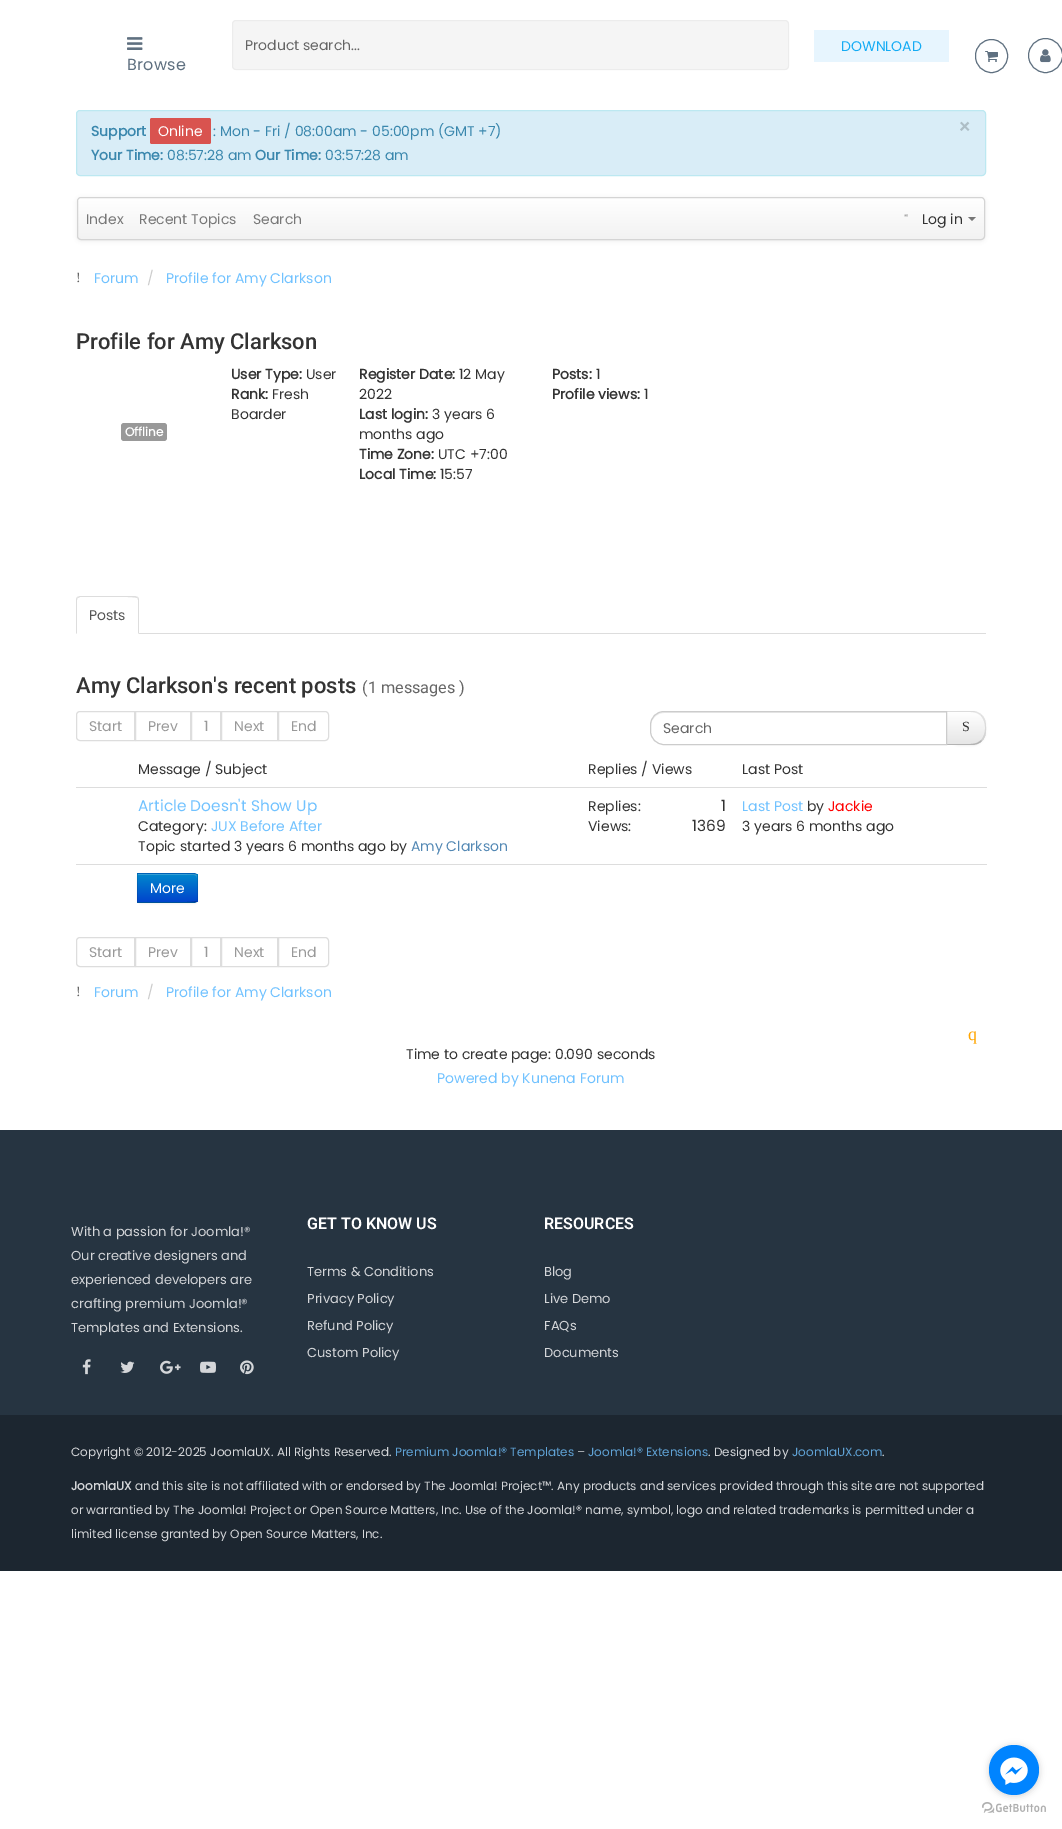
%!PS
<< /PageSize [1062 1829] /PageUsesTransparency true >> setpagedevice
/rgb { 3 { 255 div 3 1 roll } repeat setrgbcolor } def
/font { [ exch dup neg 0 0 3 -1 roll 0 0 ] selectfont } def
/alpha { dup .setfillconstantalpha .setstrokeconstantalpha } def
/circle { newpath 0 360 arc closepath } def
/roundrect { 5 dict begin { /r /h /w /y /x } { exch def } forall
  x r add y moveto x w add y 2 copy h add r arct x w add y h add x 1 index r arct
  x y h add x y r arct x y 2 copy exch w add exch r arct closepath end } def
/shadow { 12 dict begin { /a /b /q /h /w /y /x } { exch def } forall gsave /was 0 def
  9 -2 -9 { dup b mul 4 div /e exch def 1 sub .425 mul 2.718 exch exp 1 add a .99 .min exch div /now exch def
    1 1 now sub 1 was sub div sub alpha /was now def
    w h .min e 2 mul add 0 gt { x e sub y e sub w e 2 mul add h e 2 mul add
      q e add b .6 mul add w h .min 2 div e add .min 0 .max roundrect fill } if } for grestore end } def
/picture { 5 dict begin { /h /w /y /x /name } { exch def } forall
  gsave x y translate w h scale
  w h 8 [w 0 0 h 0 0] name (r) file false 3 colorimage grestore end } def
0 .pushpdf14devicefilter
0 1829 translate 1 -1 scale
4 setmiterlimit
255 255 255 rgb
0 0 1062 1829 rectfill
245 245 245 rgb
232 20 557 50 4 roundrect fill
0.21 alpha
204 204 204 rgb
232.5 20.5 556 49 3.5 roundrect stroke
1 alpha
231 245 254 rgb
814 30 135 32 rectfill
95 112 128 rgb
975.5 39.5 32 33 16 roundrect stroke
(img/1.rgb) 985 51 13 11 picture
1045.5 55.5 17 circle stroke
(img/2.rgb) 1040 49 11 14 picture
(img/3.rgb) 127 37 16 13 picture
217 237 247 rgb
76.5 110.5 909 65 3.5 roundrect gsave fill grestore
188 232 241 rgb
stroke
217 83 79 rgb
150 118 61 26 2 roundrect fill
0 0 0 rgb
77 198 908 43 4 2 0.07 shadow
gsave
77 197 908 43 4 roundrect clip newpath
gsave 77 198 moveto 985 198 lineto 985 239 lineto 77 239 lineto closepath clip newpath
<< /ShadingType 2 /ColorSpace /DeviceRGB /Coords [531 198 531 239] /Extend [true true] /Function << /FunctionType 2 /Domain [0 1] /C0 [1 1 1] /C1 [0.949 0.949 0.949] /N 1 >> >> shfill grestore
grestore
212 212 212 rgb
77.5 197.5 907 42 3.5 roundrect stroke
119 119 119 rgb
968 217 moveto 976 217 lineto 972 221 lineto closepath fill
153 153 153 rgb
121 423 46 18 3 roundrect fill
221 221 221 rgb
139 633 847 1 rectfill
80 596 moveto 77 597 lineto 78 598 lineto 80 597 lineto 85 597 135 596 137 598 curveto 138 597 lineto 135 596 lineto closepath fill
139 634 moveto 139 600 lineto 139 599 138.5 598 138 597 curveto 137 598 lineto 138 598 138 599 138 600 curveto 138 633 lineto closepath 76 634 moveto 77 633 lineto 77 600 lineto 77 599 77 598 78 598 curveto 77 597 lineto 76.5 598 76 599 76 600 curveto closepath fill
80 711.5 moveto 134.5 711.5 lineto 134.5 740.5 lineto 80 740.5 lineto 78 740.5 76.5 739 76.5 737 curveto 76.5 715 lineto 76.5 713 78 711.5 80 711.5 curveto closepath stroke
135.5 711.5 55 29 rectstroke
191.5 711.5 29 29 rectstroke
221.5 711.5 56 29 rectstroke
278.5 711.5 moveto 325 711.5 lineto 327 711.5 328.5 713 328.5 715 curveto 328.5 737 lineto 328.5 739 327 740.5 325 740.5 curveto 278.5 740.5 lineto closepath stroke
0 0 0 rgb
946 712 40 34 14 1 0.05 shadow
245 245 245 rgb
946 711 moveto 972 711 lineto 979.5 711 986 717.5 986 725 curveto 986 731 lineto 986 738.5 979.5 745 972 745 curveto 946 745 lineto closepath fill
gsave
946 711 moveto 972 711 lineto 979.5 711 986 717.5 986 725 curveto 986 731 lineto 986 738.5 979.5 745 972 745 curveto 946 745 lineto closepath clip newpath
gsave 947 712 moveto 986 712 lineto 986 744 lineto 947 744 lineto closepath clip newpath
<< /ShadingType 2 /ColorSpace /DeviceRGB /Coords [966 712 966 744] /Extend [true true] /Function << /FunctionType 2 /Domain [0 1] /C0 [1 1 1] /C1 [0.902 0.902 0.902] /N 1 >> >> shfill grestore
grestore
0.1 alpha
0 0 0 rgb
946 711 moveto 947 712 lineto 963 712 lineto 969 712 976.5 711 981 716 curveto 982 715 lineto 979.5 712.5 976 711 972 711 curveto closepath fill
986 731 moveto 986 725.5 986.5 719.5 982 715 curveto 981 716 lineto 986.5 722 986.5 734 981 740 curveto 982 741 lineto 984.5 738.5 986 735 986 731 curveto closepath fill
1 alpha
179 179 179 rgb
972 745 moveto 976 745 979.5 743.5 982 741 curveto 981 740 lineto 976.5 745 969 744 963 744 curveto 947 744 lineto 946 745 lineto closepath fill
255 255 255 rgb
664 711 moveto 947 711 lineto 947 745 lineto 664 745 lineto 656.5 745 650 738.5 650 731 curveto 650 725 lineto 650 717.5 656.5 711 664 711 curveto closepath fill
236 236 236 rgb
664 713 moveto 946 713 lineto 946 712 lineto 664 712 lineto 657 712 651 718 651 725 curveto 651 726 lineto 651 719 657 713 664 713 curveto closepath fill
204 204 204 rgb
664 711.5 moveto 946.5 711.5 lineto 946.5 744.5 lineto 664 744.5 lineto 656.5 744.5 650.5 738.5 650.5 731 curveto 650.5 725 lineto 650.5 717.5 656.5 711.5 664 711.5 curveto closepath stroke
221 221 221 rgb
76 787 911 1 rectfill
76 864 911 1 rectfill
0 0 0 rgb
137 874 61 30 4 1 0.05 shadow
0 109 204 rgb
137 873 moveto 194 873 lineto 196 873 198 875 198 877 curveto 198 899 lineto 198 901 196 903 194 903 curveto 137 903 lineto closepath fill
gsave
137 873 moveto 194 873 lineto 196 873 198 875 198 877 curveto 198 899 lineto 198 901 196 903 194 903 curveto 137 903 lineto closepath clip newpath
gsave 137 874 moveto 198 874 lineto 198 902 lineto 137 902 lineto closepath clip newpath
<< /ShadingType 2 /ColorSpace /DeviceRGB /Coords [168 874 168 902] /Extend [true true] /Function << /FunctionType 2 /Domain [0 1] /C0 [0 0.533 0.8] /C1 [0 0.267 0.8] /N 1 >> >> shfill grestore
grestore
0.2 alpha
255 255 255 rgb
138 875 moveto 194 875 lineto 196 875 197 876 197 878 curveto 197 877 lineto 197 875 196 874 194 874 curveto 138 874 lineto closepath fill
0.1 alpha
0 0 0 rgb
137 873 moveto 138 874 lineto 145 874 194 873 196 875 curveto 197 874 lineto 194 873 lineto closepath fill
198 899 moveto 198 877 lineto 198 876 197.5 875 197 874 curveto 196 875 lineto 197 875 197 876 197 877 curveto 197 899 lineto 197 900 197 901 196 901 curveto 197 902 lineto 197.5 901 198 900 198 899 curveto closepath fill
0.25 alpha
194 903 moveto 197 902 lineto 196 901 lineto 194 903 145 902 138 902 curveto 137 903 lineto closepath fill
0.1 alpha
137 873 moveto 137 903 lineto 138 902 lineto 138 874 lineto closepath fill
1 alpha
221 221 221 rgb
80 937.5 moveto 134.5 937.5 lineto 134.5 966.5 lineto 80 966.5 lineto 78 966.5 76.5 965 76.5 963 curveto 76.5 941 lineto 76.5 939 78 937.5 80 937.5 curveto closepath stroke
135.5 937.5 55 29 rectstroke
191.5 937.5 29 29 rectstroke
221.5 937.5 56 29 rectstroke
278.5 937.5 moveto 325 937.5 lineto 327 937.5 328.5 939 328.5 941 curveto 328.5 963 lineto 328.5 965 327 966.5 325 966.5 curveto 278.5 966.5 lineto closepath stroke
38 52 65 rgb
0 1130 1062 285 rectfill
(img/4.rgb) 82 1359 9 16 picture
(img/5.rgb) 120 1361 15 12 picture
(img/6.rgb) 160 1360 21 14 picture
(img/7.rgb) 200 1361 16 12 picture
(img/8.rgb) 240 1360 14 15 picture
28 38 48 rgb
0 1415 1062 156 rectfill
(img/10.rgb) 982 1802 64 11 picture
136 136 136 rgb
989 1746 50 50 25 3.5 0.4 shadow
0 132 255 rgb
1014 1770 25 circle fill
(img/9.rgb) 1000 1757 28 28 picture
/Poppins-Regular 14 font
101 101 101 rgb
245 50 moveto (Product search...) show
20 171 244 rgb
841 51 moveto (DOWNLOAD) show
/Poppins-Regular 16 font
95 112 128 rgb
127 70 moveto 0.25 0 (Browse) ashow
/Poppins-Bold 14 font
58 135 173 rgb
91 136 moveto (Support) show
/Poppins-Regular 14 font
255 255 255 rgb
158 136 moveto (Online) show
58 135 173 rgb
213 136 moveto (: Mon - Fri / 08:00am - 05:00pm \(GMT +7\)) show
/Poppins-Bold 14 font
91 160 moveto (Your Time:) show
/Poppins-Regular 14 font
167 160 moveto (08:57:28 am) show
/Poppins-Bold 14 font
255 160 moveto (Our Time:) show
/Poppins-Regular 14 font
325 160 moveto (03:57:28 am) show
/Poppins-Bold 20 font
174 190 198 rgb
958 134 moveto (×) show
/Poppins-Regular 14 font
119 119 119 rgb
[
  [(Index) 86 224]
  [(Recent Topics) 139 224]
  [(Search) 253 224]
] { aload pop moveto show } forall
/LiberationSerif-Regular 10 font
101 101 101 rgb
904 221 moveto (") show
/Poppins-Regular 14 font
51 51 51 rgb
922 224 moveto (Log in) show
/LiberationSerif-Regular 14 font
101 101 101 rgb
76 282 moveto (!) show
/Poppins-Regular 14 font
113 194 255 rgb
94 283 moveto (Forum) show
204 204 204 rgb
147 283 moveto (/) show
113 194 255 rgb
166 283 moveto (Profile for Amy Clarkson) show
/Roboto-Medium 22 font
51 51 51 rgb
76 349 moveto (Profile for Amy Clarkson) show
/Poppins-Bold 12 font
255 255 255 rgb
125 436 moveto (Offline) show
/Poppins-Bold 14 font
51 51 51 rgb
231 379 moveto (User Type:) show
/Poppins-Regular 14 font
306 379 moveto (User) show
/Poppins-Bold 14 font
231 399 moveto (Rank:) show
/Poppins-Regular 14 font
272 399 moveto (Fresh) show
231 419 moveto (Boarder) show
/Poppins-Bold 14 font
359 379 moveto (Register Date:) show
/Poppins-Regular 14 font
459 379 moveto (12 May) show
359 399 moveto (2022) show
/Poppins-Bold 14 font
359 419 moveto (Last login:) show
/Poppins-Regular 14 font
432 419 moveto (3 years 6) show
359 439 moveto (months ago) show
/Poppins-Bold 14 font
359 459 moveto (Time Zone:) show
/Poppins-Regular 14 font
438 459 moveto (UTC +7:00) show
/Poppins-Bold 14 font
359 479 moveto (Local Time:) show
/Poppins-Regular 14 font
440 479 moveto (15:57) show
/Poppins-Bold 14 font
552 379 moveto (Posts:) show
/Poppins-Regular 14 font
596 379 moveto (1) show
/Poppins-Bold 14 font
552 399 moveto (Profile views:) show
/Poppins-Regular 14 font
644 399 moveto (1) show
85 85 85 rgb
89 620 moveto (Posts) show
/Roboto-Medium 22 font
51 51 51 rgb
76 693 moveto (Amy Clarkson's recent posts) show
/Roboto-Regular 16.25 font
101 101 101 rgb
362 693 moveto (\(1 messages \)) show
/Poppins-Regular 14 font
153 153 153 rgb
[
  [(Start) 89 731]
  [(Prev) 148 731]
  [(1) 204 731]
  [(Next) 234 731]
  [(End) 291 731]
] { aload pop moveto show } forall
101 101 101 rgb
663 733 moveto (Search) show
/LiberationSerif-Regular 14 font
51 51 51 rgb
962 731 moveto (S) show
/Poppins-Regular 14 font
[
  [(Message / Subject) 138 774]
  [(Replies / Views) 588 774]
  [(Last Post) 742 774]
] { aload pop moveto show } forall
/Poppins-Regular 15.4 font
113 194 255 rgb
138 811 moveto (Article Doesn't Show Up) show
/Poppins-Regular 14 font
51 51 51 rgb
138 831 moveto (Category:) show
113 194 255 rgb
211 831 moveto (JUX Before After) show
51 51 51 rgb
138 851 moveto (Topic started 3 years 6 months ago by) show
83 136 180 rgb
411 851 moveto (Amy Clarkson) show
51 51 51 rgb
588 811 moveto (Replies:) show
/Poppins-Regular 15.4 font
721 811 moveto (1) show
/Poppins-Regular 14 font
588 831 moveto (Views:) show
/Poppins-Regular 15.4 font
692 831 moveto (1369) show
/Poppins-Regular 14 font
113 194 255 rgb
742 811 moveto (Last Post) show
51 51 51 rgb
807 811 moveto (by) show
255 0 0 rgb
828 811 moveto (Jackie) show
51 51 51 rgb
742 831 moveto (3 years 6 months ago) show
255 255 255 rgb
150 893 moveto (More) show
153 153 153 rgb
[
  [(Start) 89 957]
  [(Prev) 148 957]
  [(1) 204 957]
  [(Next) 234 957]
  [(End) 291 957]
] { aload pop moveto show } forall
/LiberationSerif-Regular 14 font
101 101 101 rgb
76 996 moveto (!) show
/Poppins-Regular 14 font
113 194 255 rgb
94 997 moveto (Forum) show
204 204 204 rgb
147 997 moveto (/) show
113 194 255 rgb
166 997 moveto (Profile for Amy Clarkson) show
/LiberationSerif-Regular 18 font
255 165 0 rgb
968 1040 moveto (q) show
/Poppins-Regular 14 font
51 51 51 rgb
406 1059 moveto (Time to create page: 0.090 seconds) show
113 194 255 rgb
437 1083 moveto (Powered by Kunena Forum) show
/Poppins-Regular 13 font
212 214 217 rgb
[
  [(With a passion for Joomla!®) 71 1236]
  [(Our creative designers and) 71 1260]
  [(experienced developers are) 71 1284]
  [(crafting premium Joomla!®) 71 1308]
  [(Templates and Extensions.) 71 1332]
] { aload pop moveto show } forall
/Roboto-SemiBold 16 font
255 255 255 rgb
307 1229 moveto (GET TO KNOW US) show
/Poppins-Regular 13 font
212 214 217 rgb
[
  [(Terms & Conditions) 307 1276]
  [(Privacy Policy) 307 1303]
  [(Refund Policy) 307 1330]
  [(Custom Policy) 307 1357]
] { aload pop moveto show } forall
/Roboto-SemiBold 16 font
255 255 255 rgb
544 1229 moveto (RESOURCES) show
/Poppins-Regular 13 font
212 214 217 rgb
[
  [(Blog) 544 1276]
  [(Live Demo) 544 1303]
  [(FAQs) 544 1330]
  [(Documents) 544 1357]
] { aload pop moveto show } forall
/Poppins-Regular 12 font
71 1456 moveto (Copyright © 2012-2025 JoomlaUX. All Rights Reserved.) show
96 163 214 rgb
395 1456 moveto (Premium Joomla!® Templates) show
212 214 217 rgb
577 1456 moveto (–) show
96 163 214 rgb
588 1456 moveto (Joomla!® Extensions) show
212 214 217 rgb
708 1456 moveto (. Designed by) show
96 163 214 rgb
792 1456 moveto (JoomlaUX.com) show
212 214 217 rgb
882 1456 moveto (.) show
/Poppins-Bold 12 font
71 1490 moveto (JoomlaUX) show
/Poppins-Regular 12 font
[
  [(and this site is not affiliated with or endorsed by The Joomla! Project™. Any products and services provided through this site are not supported) 135 1490]
  [(or warrantied by The Joomla! Project or Open Source Matters, Inc. Use of the Joomla!® name, symbol, logo and related trademarks is permitted under a) 71 1514]
  [(limited license granted by Open Source Matters, Inc.) 71 1538]
] { aload pop moveto show } forall
.poppdf14devicefilter showpage
